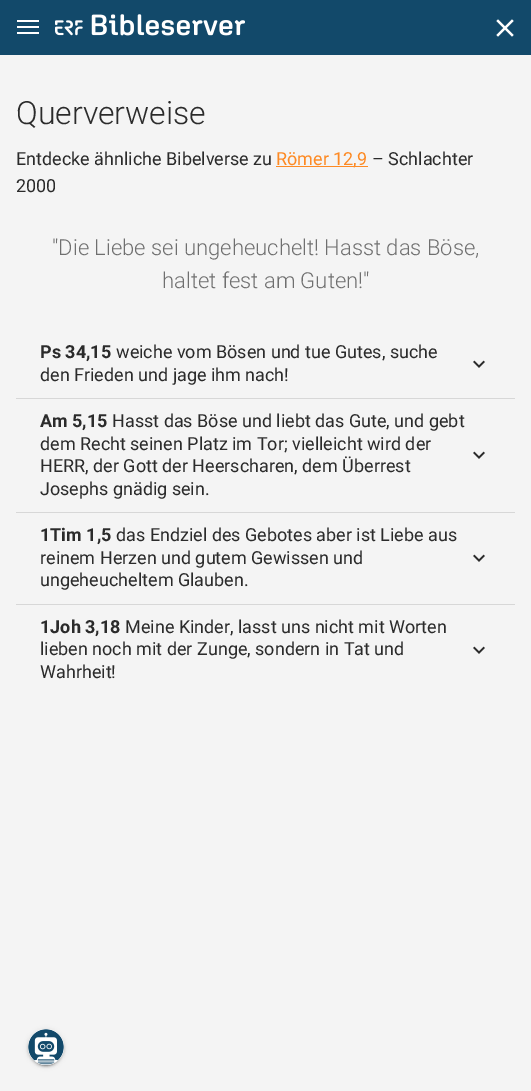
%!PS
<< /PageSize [531 1091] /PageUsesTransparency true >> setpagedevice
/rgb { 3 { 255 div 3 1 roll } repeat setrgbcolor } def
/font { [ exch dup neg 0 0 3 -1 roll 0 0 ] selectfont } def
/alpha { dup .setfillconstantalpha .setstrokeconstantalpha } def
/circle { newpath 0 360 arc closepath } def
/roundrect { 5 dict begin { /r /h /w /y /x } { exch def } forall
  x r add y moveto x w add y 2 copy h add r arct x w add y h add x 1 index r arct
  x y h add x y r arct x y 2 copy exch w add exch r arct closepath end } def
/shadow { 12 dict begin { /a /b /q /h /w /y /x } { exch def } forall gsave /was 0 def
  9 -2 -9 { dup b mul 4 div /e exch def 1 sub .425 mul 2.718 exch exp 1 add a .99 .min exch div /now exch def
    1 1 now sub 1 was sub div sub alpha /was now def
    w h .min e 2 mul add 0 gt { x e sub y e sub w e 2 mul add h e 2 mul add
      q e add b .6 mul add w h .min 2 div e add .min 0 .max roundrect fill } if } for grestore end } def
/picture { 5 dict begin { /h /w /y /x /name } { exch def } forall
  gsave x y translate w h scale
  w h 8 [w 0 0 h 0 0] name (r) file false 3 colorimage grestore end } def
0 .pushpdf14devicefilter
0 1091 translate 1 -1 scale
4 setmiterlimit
244 244 244 rgb
0 0 531 1091 rectfill
18 73 106 rgb
0 0 531 55 rectfill
(img/1.rgb) 496 19 18 18 picture
[
  [17 20 22 2 255 255 255]
  [17 26 22 2 255 255 255]
  [17 32 22 2 255 255 255]
] { aload pop rgb rectfill } forall
(img/2.rgb) 55 14 190 22 picture
253 138 36 rgb
276 166 92 1 rectfill
(img/3.rgb) 473 360 12 8 picture
215 215 215 rgb
16 398 499 1 rectfill
(img/3.rgb) 473 451 12 8 picture
16 512 499 1 rectfill
(img/3.rgb) 473 554 12 8 picture
16 604 499 1 rectfill
(img/3.rgb) 473 646 12 8 picture
0 0 0 rgb
28 1030 36 36 18 2.5 0.12 shadow
28 1031 36 36 18 1 0.14 shadow
30 1034 32 32 16 0.5 0.2 shadow
255 255 255 rgb
46 1047 18 circle fill
(img/4.rgb) 28 1029 36 36 picture
/Roboto-Light 32 font
43 43 43 rgb
16 124 moveto (Querverweise) show
/Roboto-Regular 18 font
16 165 moveto (Entdecke ähnliche Bibelverse zu) show
253 138 36 rgb
276 165 moveto (Römer 12,9) show
43 43 43 rgb
372 165 moveto (– Schlachter) show
16 192 moveto (2000) show
/Roboto-Light 22 font
111 111 111 rgb
52 255 moveto ("Die Liebe sei ungeheuchelt! Hasst das Böse,) show
162 288 moveto (haltet fest am Guten!") show
/Roboto-Bold 18 font
43 43 43 rgb
40 358 moveto (Ps 34,15) show
/Roboto-Regular 18 font
116 358 moveto (weiche vom Bösen und tue Gutes, suche) show
40 381 moveto (den Frieden und jage ihm nach!) show
/Roboto-Bold 18 font
40 427 moveto (Am 5,15) show
/Roboto-Regular 18 font
[
  [(Hasst das Böse und liebt das Gute, und gebt) 112 427]
  [(dem Recht seinen Platz im Tor; vielleicht wird der) 40 450]
  [(HERR, der Gott der Heerscharen, dem Überrest) 40 472]
  [(Josephs gnädig sein.) 40 495]
] { aload pop moveto show } forall
/Roboto-Bold 18 font
40 541 moveto (1Tim 1,5) show
/Roboto-Regular 18 font
[
  [(das Endziel des Gebotes aber ist Liebe aus) 116 541]
  [(reinem Herzen und gutem Gewissen und) 40 564]
  [(ungeheucheltem Glauben.) 40 586]
] { aload pop moveto show } forall
/Roboto-Bold 18 font
40 633 moveto (1Joh 3,18) show
/Roboto-Regular 18 font
[
  [(Meine Kinder, lasst uns nicht mit Worten) 125 633]
  [(lieben noch mit der Zunge, sondern in Tat und) 40 655]
  [(Wahrheit!) 40 678]
] { aload pop moveto show } forall
.poppdf14devicefilter showpage
